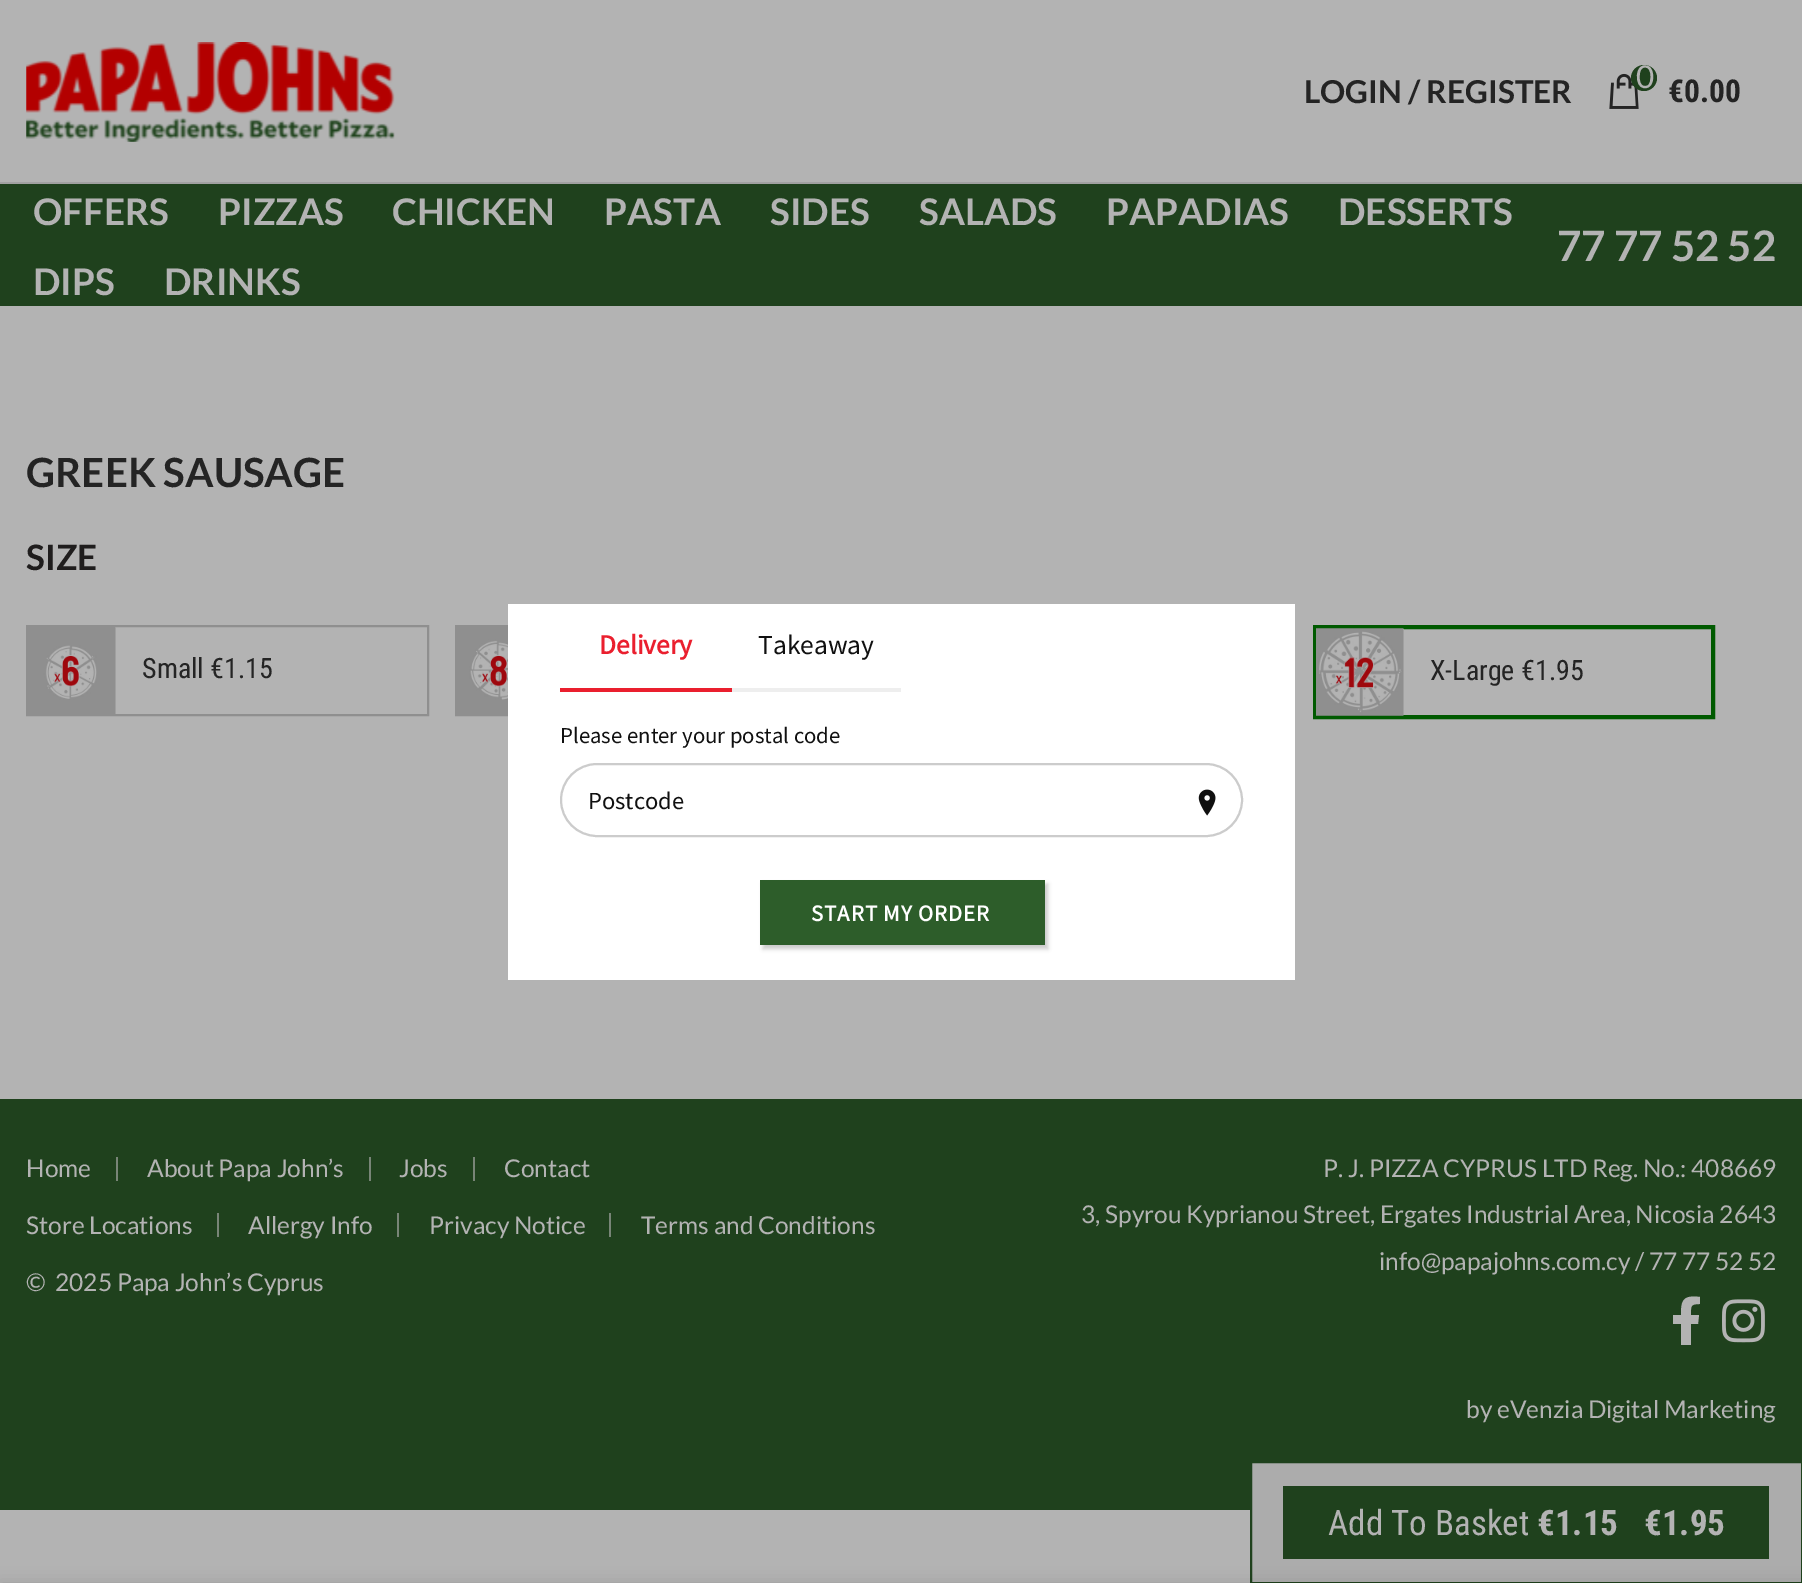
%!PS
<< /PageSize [1802 1583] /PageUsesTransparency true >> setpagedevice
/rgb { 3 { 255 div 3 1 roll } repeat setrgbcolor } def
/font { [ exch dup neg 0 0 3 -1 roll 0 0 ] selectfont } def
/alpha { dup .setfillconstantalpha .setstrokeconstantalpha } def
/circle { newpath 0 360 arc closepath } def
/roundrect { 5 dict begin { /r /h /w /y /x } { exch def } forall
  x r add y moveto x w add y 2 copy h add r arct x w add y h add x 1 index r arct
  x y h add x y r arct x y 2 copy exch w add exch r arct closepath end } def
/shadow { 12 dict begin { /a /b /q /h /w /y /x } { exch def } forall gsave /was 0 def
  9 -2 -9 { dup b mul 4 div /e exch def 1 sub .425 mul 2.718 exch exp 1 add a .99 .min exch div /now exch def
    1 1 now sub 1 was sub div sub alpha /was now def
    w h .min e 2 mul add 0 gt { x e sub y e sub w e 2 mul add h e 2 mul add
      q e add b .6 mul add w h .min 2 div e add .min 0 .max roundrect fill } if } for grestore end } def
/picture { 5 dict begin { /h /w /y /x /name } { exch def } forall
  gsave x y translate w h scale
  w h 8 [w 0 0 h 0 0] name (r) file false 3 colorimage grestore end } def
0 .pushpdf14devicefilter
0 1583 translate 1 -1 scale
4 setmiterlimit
179 179 179 rgb
0 0 1802 1583 rectfill
161 161 161 rgb
0 182 1802 2 rectfill
(img/1.rgb) 26 42 369 100 picture
(img/2.rgb) 1609 73 30 36 picture
31 65 29 rgb
1644 78 13 circle fill
0 184 1802 122 rectfill
143 143 143 rgb
2 setlinewidth
27 626 401 89 rectstroke
(img/3.rgb) 28 627 88 87 picture
456 626 401 89 rectstroke
(img/4.rgb) 457 627 51 87 picture
0 90 0 rgb
4 setlinewidth
1315 627 398 90 rectstroke
(img/5.rgb) 1316 628 88 88 picture
31 65 29 rgb
0 1099 1802 411 rectfill
172 172 172 rgb
1251 1462 moveto 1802 1462 lineto 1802 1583 lineto 1251 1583 lineto closepath gsave fill grestore
31 65 29 rgb
2 setlinewidth
stroke
[
  [1283 1486 486 73 31 65 29]
  [116 1157 2 24 120 133 119]
  [369 1157 2 24 120 133 119]
  [473 1157 2 24 120 133 119]
  [217 1213 2 24 120 133 119]
  [397 1213 2 24 120 133 119]
  [609 1213 2 24 120 133 119]
] { aload pop rgb rectfill } forall
179 179 179 rgb
1698 1324 moveto 1699 1315 lineto 1691 1315 lineto 1691 1306 1690 1304 1700 1304 curveto 1700 1297 lineto 1683 1295 1681 1300 1681 1315 curveto 1673 1315 lineto 1673 1324 lineto 1681 1324 lineto 1681 1345 lineto 1691 1345 lineto 1691 1324 lineto closepath fill
(img/6.rgb) 1722 1299 43 44 picture
[
  [508 604 787 376 255 255 255]
  [560 688 172 4 234 31 46]
  [732 688 169 4 238 238 238]
] { aload pop rgb rectfill } forall
204 204 204 rgb
561 764 681 72 36 roundrect stroke
(img/7.rgb) 1198 789 18 27 picture
0 0 0 rgb
763 884 285 65 0 2 0.2 shadow
45 93 42 rgb
760 880 285 65 rectfill
0 0 0 rgb
0 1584 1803 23 0 8 0.14 shadow
/Lato-Bold 31.5 font
36 36 36 rgb
1304 103 moveto (LOGIN / REGISTER) show
/Lato-Regular 31.5 font
179 179 179 rgb
1636 88 moveto (0) show
/RobotoCondensed-Bold 31.5 font
36 36 36 rgb
1668 102 moveto (€0.00) show
/Lato-Bold 36.75 font
179 179 179 rgb
[
  [(OFFERS) 33 225]
  [(PIZZAS) 218 225]
  [(CHICKEN) 392 225]
  [(PASTA) 604 225]
  [(SIDES) 770 225]
  [(SALADS) 919 225]
  [(PAPADIAS) 1106 225]
  [(DESSERTS) 1338 225]
  [(DIPS) 33 295]
  [(DRINKS) 164 295]
] { aload pop moveto show } forall
/Lato-Bold 42 font
1557 261 moveto (77 77 52 52) show
/Lato-Bold 40.25 font
36 36 36 rgb
26 487 moveto (GREEK SAUSAGE) show
/Lato-Bold 35 font
31 29 29 rgb
26 570 moveto (SIZE) show
/RobotoCondensed-Regular 28 font
36 36 36 rgb
142 678 moveto (Small €1.15) show
1430 680 moveto (X-Large €1.95) show
/RobotoCondensed-Regular 35 font
179 179 179 rgb
1328 1535 moveto (Add To Basket) show
/RobotoCondensed-Bold 35 font
1537 1535 moveto (€1.15) show
1644 1535 moveto (€1.95) show
/Lato-Regular 24.5 font
[
  [(Home) 26 1177]
  [(About Papa John’s) 147 1177]
  [(Jobs) 399 1177]
  [(Contact) 504 1177]
  [(Store Locations) 26 1234]
  [(Allergy Info) 248 1234]
  [(Privacy Notice) 429 1234]
  [(Terms and Conditions) 641 1234]
  [(©  2025 Papa John’s Cyprus) 26 1291]
  [(P. J. PIZZA CYPRUS LTD Reg. No.: 408669) 1323 1177]
  [(3, Spyrou Kyprianou Street, Ergates Industrial Area, Nicosia 2643) 1081 1223]
  [(info@papajohns.com.cy / 77 77 52 52) 1379 1270]
  [(by eVenzia Digital Marketing) 1466 1418]
] { aload pop moveto show } forall
/SourceSansPro-Bold 27.5 font
234 31 46 rgb
599 654 moveto (Delivery) show
/SourceSansPro-Regular 27.5 font
16 16 16 rgb
758 654 moveto (Takeaway) show
/SourceSansPro-Regular 22.75 font
560 743 moveto (Please enter your postal code) show
/SourceSansPro-Regular 24.5 font
588 809 moveto (Postcode) show
/SourceSansPro-Bold 22.75 font
255 255 255 rgb
811 921 moveto 1 0 (START MY ORDER) ashow
.poppdf14devicefilter showpage
